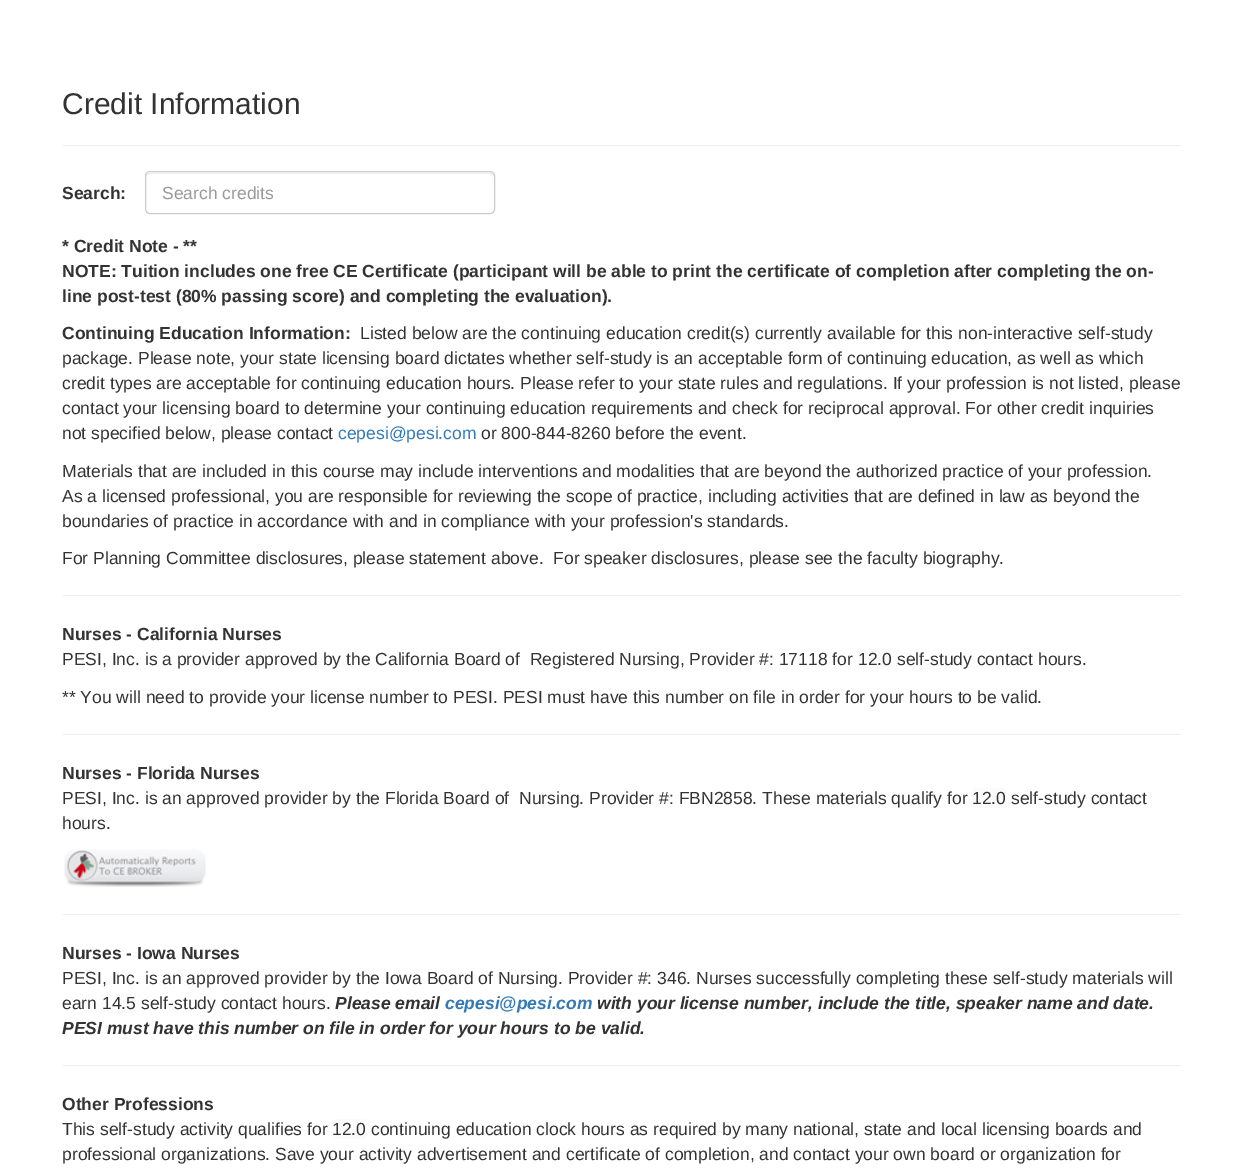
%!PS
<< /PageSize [1248 1168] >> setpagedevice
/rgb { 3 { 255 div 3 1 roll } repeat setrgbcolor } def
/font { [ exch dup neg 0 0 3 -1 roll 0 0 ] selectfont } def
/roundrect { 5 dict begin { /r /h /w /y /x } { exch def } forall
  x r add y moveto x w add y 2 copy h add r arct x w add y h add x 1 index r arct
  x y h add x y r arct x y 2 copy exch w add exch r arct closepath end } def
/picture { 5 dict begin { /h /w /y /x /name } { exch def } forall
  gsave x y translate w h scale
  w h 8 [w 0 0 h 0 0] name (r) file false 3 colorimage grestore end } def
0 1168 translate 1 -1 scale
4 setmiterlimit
255 255 255 rgb
0 0 1248 1168 rectfill
238 238 238 rgb
63 145 1118 1 rectfill
236 236 236 rgb
150 174 moveto 490 174 lineto 492 174 494 175 494 178 curveto 494 177 lineto 494 175 492 173 490 173 curveto 150 173 lineto 148 173 146 175 146 177 curveto 146 178 lineto 146 175 148 174 150 174 curveto closepath fill
204 204 204 rgb
145.5 171.5 349 42 4.5 roundrect stroke
[
  [63 595 1118 1 238 238 238]
  [858 649 33 20 251 251 251]
  [63 734 1118 1 238 238 238]
  [973 788 33 20 251 251 251]
] { aload pop rgb rectfill } forall
(img/1.rgb) 64 849 142 38 picture
[
  [63 914 1118 1 238 238 238]
  [101 993 35 20 251 251 251]
  [63 1065 1118 1 238 238 238]
  [333 1119 33 20 251 251 251]
] { aload pop rgb rectfill } forall
/LiberationSans-Regular 30 font
51 51 51 rgb
62 114 moveto (Credit Information) show
/LiberationSans-Bold 17.5 font
62 199 moveto (Search:) show
/LiberationSans-Regular 17.5 font
153 153 153 rgb
162 199 moveto (Search credits) show
/LiberationSans-Bold 17.5 font
51 51 51 rgb
[
  [(* Credit Note - **) 62 252]
  [(NOTE: Tuition includes one free CE Certificate \(participant will be able to print the certificate of completion after completing the on-) 62 277]
  [(line post-test \(80% passing score\) and completing the evaluation\).) 62 302]
  [(Continuing Education Information:) 62 339]
] { aload pop moveto show } forall
/LiberationSans-Regular 17.5 font
[
  [(Listed below are the continuing education credit\(s\) currently available for this non-interactive self-study) 360 339]
  [(package. Please note, your state licensing board dictates whether self-study is an acceptable form of continuing education, as well as which) 62 364]
  [(credit types are acceptable for continuing education hours. Please refer to your state rules and regulations. If your profession is not listed, please) 62 389]
  [(contact your licensing board to determine your continuing education requirements and check for reciprocal approval. For other credit inquiries) 62 414]
  [(not specified below, please contact) 62 439]
] { aload pop moveto show } forall
51 122 183 rgb
338 439 moveto (cepesi@pesi.com) show
51 51 51 rgb
[
  [(or 800-844-8260 before the event.) 481 439]
  [(Materials that are included in this course may include interventions and modalities that are beyond the authorized practice of your profession.) 62 477]
  [(As a licensed professional, you are responsible for reviewing the scope of practice, including activities that are defined in law as beyond the) 62 502]
  [(boundaries of practice in accordance with and in compliance with your profession's standards.) 62 527]
  [(For Planning Committee disclosures, please statement above.  For speaker disclosures, please see the faculty biography.) 62 564]
] { aload pop moveto show } forall
/LiberationSans-Bold 17.5 font
62 640 moveto (Nurses - California Nurses) show
/LiberationSans-Regular 17.5 font
[
  [(PESI, Inc. is a provider approved by the California Board of  Registered Nursing, Provider #: 17118 for) 62 665]
  [(12.0 self-study contact hours.) 858 665]
  [(** You will need to provide your license number to PESI. PESI must have this number on file in order for your hours to be valid.) 62 703]
] { aload pop moveto show } forall
/LiberationSans-Bold 17.5 font
62 779 moveto (Nurses - Florida Nurses) show
/LiberationSans-Regular 17.5 font
[
  [(PESI, Inc. is an approved provider by the Florida Board of  Nursing. Provider #: FBN2858. These materials qualify for) 62 804]
  [(12.0 self-study contact) 972 804]
  [(hours.) 62 829]
] { aload pop moveto show } forall
/LiberationSans-Bold 17.5 font
62 959 moveto (Nurses - Iowa Nurses) show
/LiberationSans-Regular 17.5 font
[
  [(PESI, Inc. is an approved provider by the Iowa Board of Nursing. Provider #: 346. Nurses successfully completing these self-study materials will) 62 984]
  [(earn) 62 1009]
  [(14.5 self-study contact hours.) 102 1009]
] { aload pop moveto show } forall
/LiberationSans-BoldItalic 17.5 font
335 1009 moveto (Please email) show
51 122 183 rgb
445 1009 moveto (cepesi@pesi.com) show
51 51 51 rgb
597 1009 moveto (with your license number, include the title, speaker name and date.) show
62 1034 moveto (PESI must have this number on file in order for your hours to be valid.) show
/LiberationSans-Bold 17.5 font
62 1110 moveto (Other Professions) show
/LiberationSans-Regular 17.5 font
[
  [(This self-study activity qualifies for) 62 1135]
  [(12.0 continuing education clock hours as required by many national, state and local licensing boards and) 332 1135]
  [(professional organizations. Save your activity advertisement and certificate of completion, and contact your own board or organization for) 62 1160]
] { aload pop moveto show } forall
showpage
